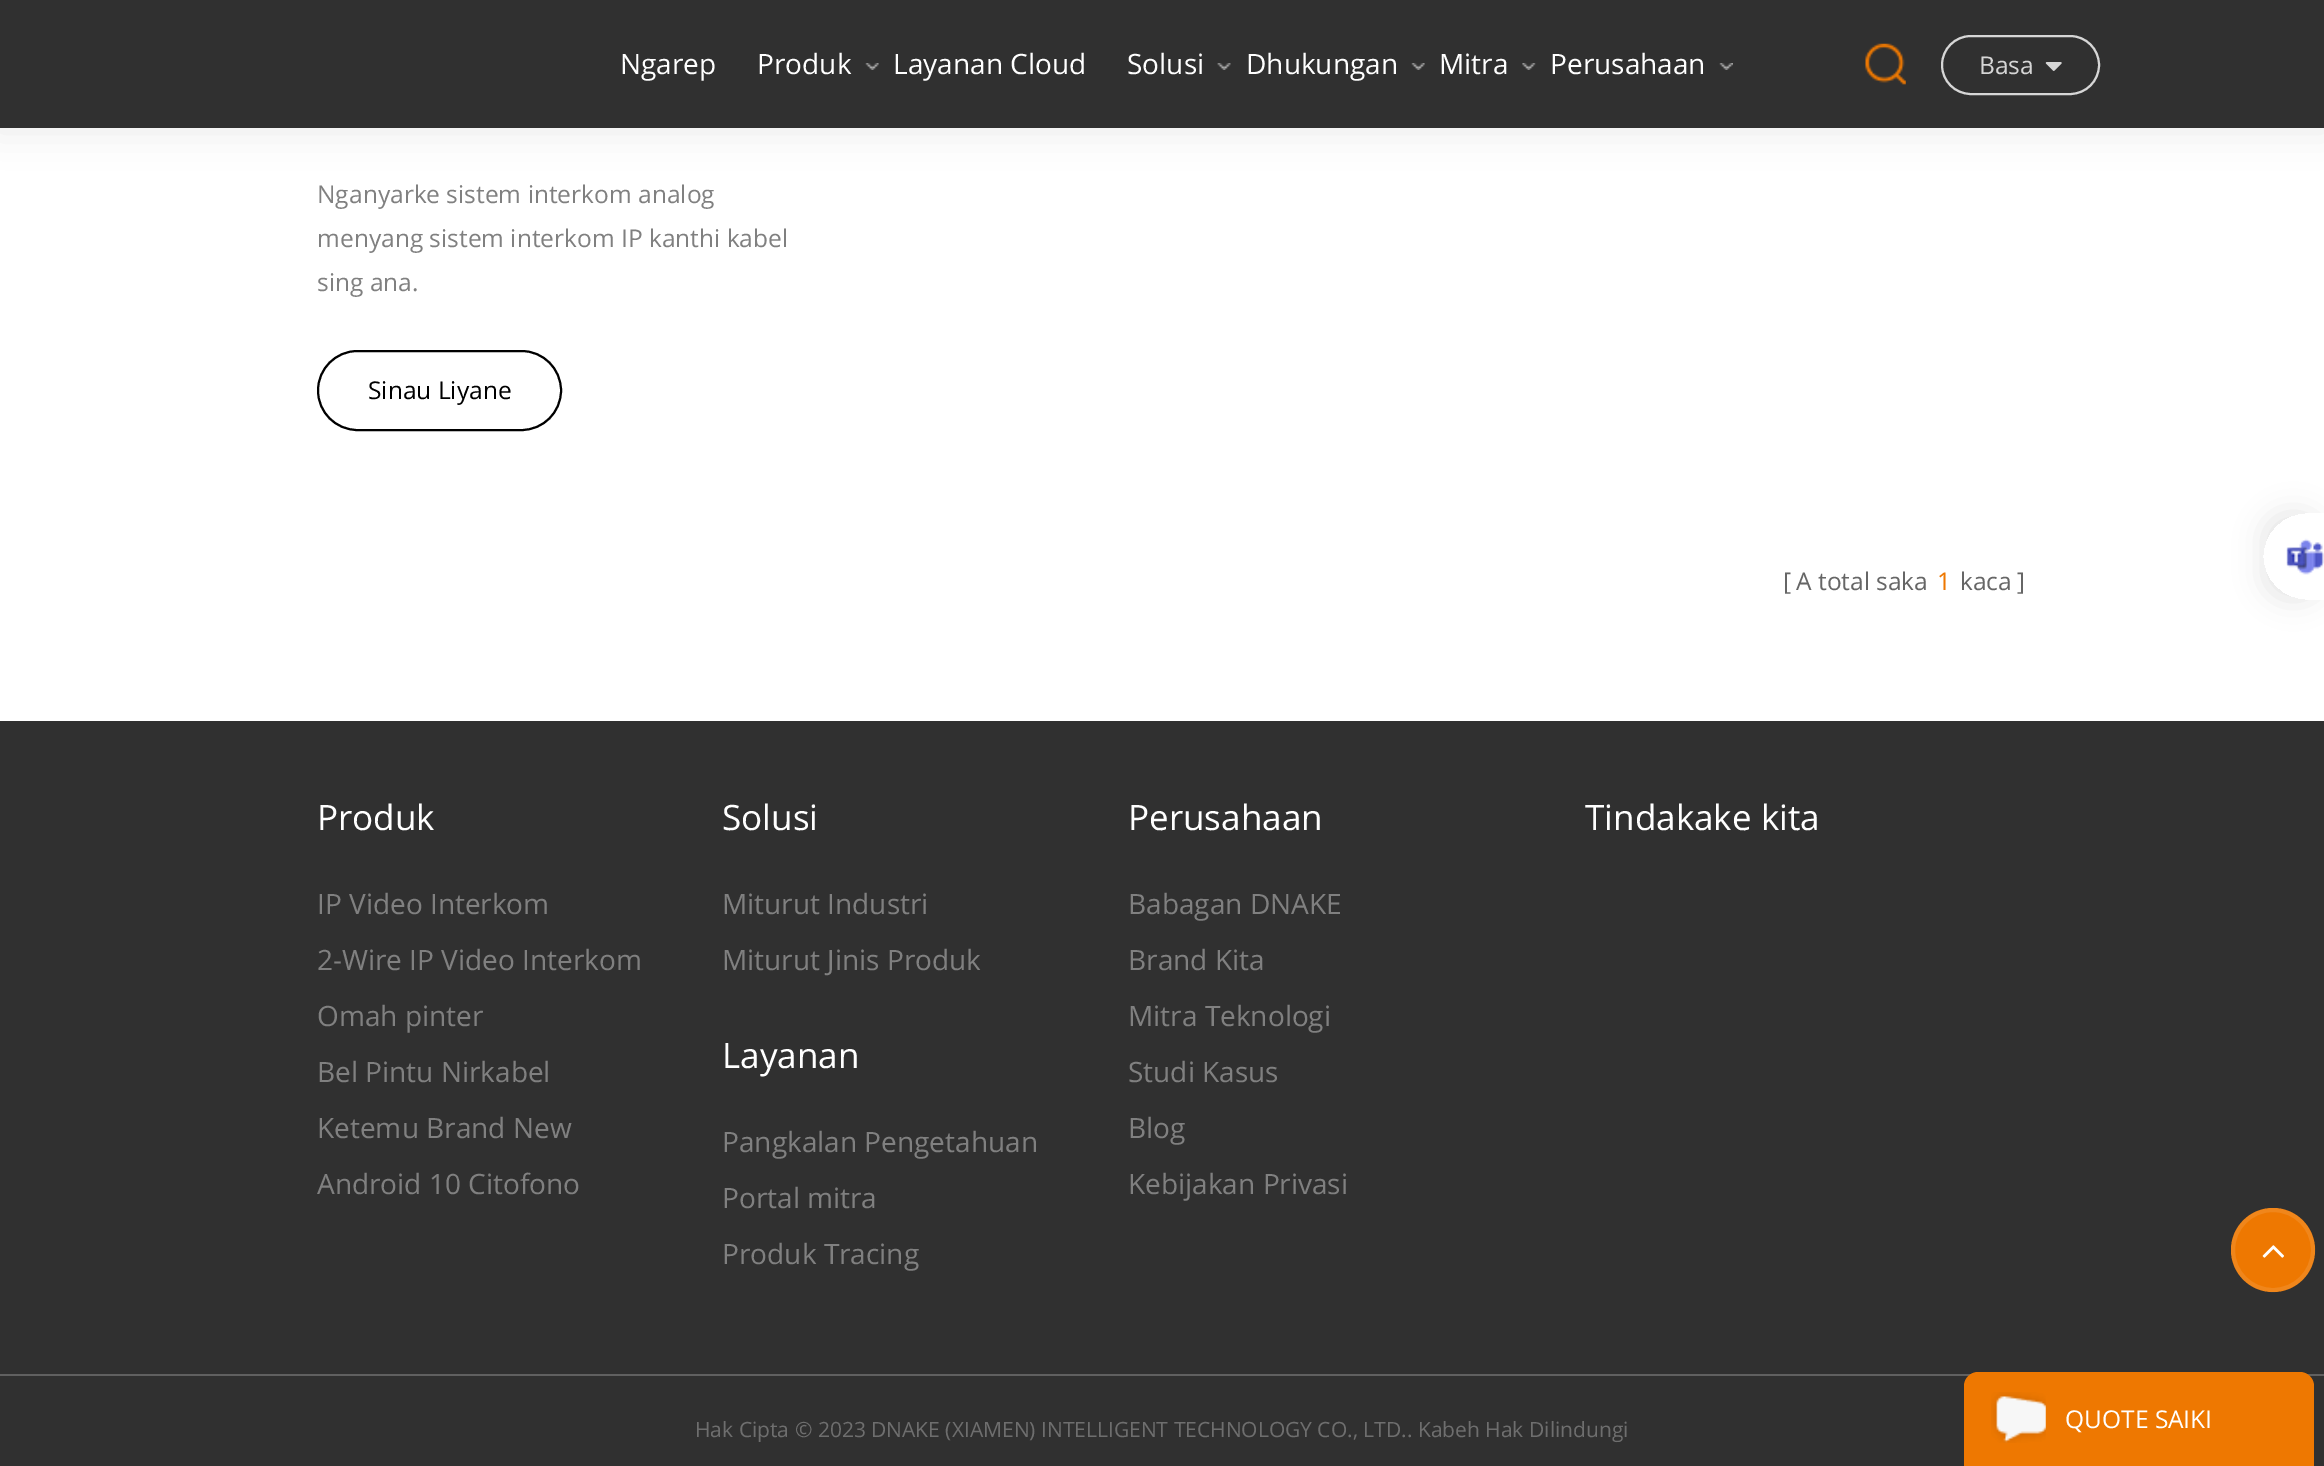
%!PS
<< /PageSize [2324 1466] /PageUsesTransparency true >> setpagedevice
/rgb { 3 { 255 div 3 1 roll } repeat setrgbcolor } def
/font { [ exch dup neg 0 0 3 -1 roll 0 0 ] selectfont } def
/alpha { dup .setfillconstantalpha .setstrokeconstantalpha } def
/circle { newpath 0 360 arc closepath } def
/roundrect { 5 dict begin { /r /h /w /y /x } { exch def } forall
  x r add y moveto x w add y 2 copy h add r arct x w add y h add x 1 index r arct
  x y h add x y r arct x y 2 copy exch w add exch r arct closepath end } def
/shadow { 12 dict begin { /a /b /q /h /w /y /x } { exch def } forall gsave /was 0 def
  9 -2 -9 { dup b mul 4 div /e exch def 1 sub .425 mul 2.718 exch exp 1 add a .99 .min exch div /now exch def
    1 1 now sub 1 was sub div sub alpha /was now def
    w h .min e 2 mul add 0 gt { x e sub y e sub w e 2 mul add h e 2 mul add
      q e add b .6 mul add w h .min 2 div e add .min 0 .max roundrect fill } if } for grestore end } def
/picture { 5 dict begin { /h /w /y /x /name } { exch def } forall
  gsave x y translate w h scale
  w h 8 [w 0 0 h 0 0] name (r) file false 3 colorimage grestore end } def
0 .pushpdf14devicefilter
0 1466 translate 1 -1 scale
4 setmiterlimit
255 255 255 rgb
0 0 2324 1466 rectfill
0 0 0 rgb
-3 -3 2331 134 0 17.5 0.08 shadow
48 48 48 rgb
0 0 2324 128 rectfill
(img/1.rgb) 865 63 14 7 picture
(img/2.rgb) 1217 63 14 7 picture
(img/1.rgb) 1411 63 14 7 picture
(img/3.rgb) 1522 63 14 7 picture
(img/4.rgb) 1719 63 14 7 picture
(img/5.rgb) 1865 43 41 42 picture
214 214 214 rgb
2 setlinewidth
1942 36 157 58 29 roundrect stroke
(img/6.rgb) 2045 62 17 9 picture
0 0 0 rgb
318 351 243 79 39.5 roundrect stroke
gsave
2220 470 moveto 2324 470 lineto 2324 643 lineto 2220 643 lineto closepath 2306.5 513 moveto 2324 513 lineto 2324 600 lineto 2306.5 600 lineto 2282.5 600 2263 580.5 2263 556.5 curveto 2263 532.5 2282.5 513 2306.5 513 curveto closepath eoclip newpath
2263 513 61 87 44 14 0.1 shadow
grestore
(img/7.rgb) 2286 538 38 37 picture
48 48 48 rgb
0 721 2324 745 rectfill
96 96 96 rgb
0 1374 2324 2 rectfill
238 120 1 rgb
2273 1250 42 circle fill
0.1 alpha
255 255 255 rgb
4 setlinewidth
2273 1250 40 circle stroke
1 alpha
(img/8.rgb) 2262 1245 22 13 picture
238 120 1 rgb
1978 1372 moveto 2300 1372 lineto 2307.5 1372 2314 1378.5 2314 1386 curveto 2314 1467 lineto 1964 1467 lineto 1964 1386 lineto 1964 1378.5 1970.5 1372 1978 1372 curveto closepath fill
(img/9.rgb) 1991 1392 55 51 picture
/OpenSans-Regular 28 font
255 255 255 rgb
[
  [(Ngarep) 620 74]
  [(Produk) 757 74]
  [(Layanan Cloud) 893 74]
  [(Solusi) 1127 74]
  [(Dhukungan) 1246 74]
  [(Mitra) 1439 74]
  [(Perusahaan) 1550 74]
] { aload pop moveto show } forall
/OpenSans-Regular 24.5 font
214 214 214 rgb
1979 74 moveto (Basa) show
128 128 128 rgb
[
  [(Nganyarke sistem interkom analog) 317 203]
  [(menyang sistem interkom IP kanthi kabel) 317 247]
  [(sing ana.) 317 291]
] { aload pop moveto show } forall
0 0 0 rgb
368 399 moveto (Sinau Liyane) show
102 102 102 rgb
1783 590 moveto ([) show
1796 590 moveto (A total saka) show
238 120 1 rgb
1937 590 moveto (1) show
102 102 102 rgb
1960 590 moveto (kaca) show
2017 590 moveto (]) show
/OpenSans-Regular 35 font
255 255 255 rgb
317 830 moveto (Produk) show
/OpenSans-Regular 28 font
128 128 128 rgb
[
  [(IP Video Interkom) 317 914]
  [(2-Wire IP Video Interkom) 317 970]
  [(Omah pinter) 317 1026]
  [(Bel Pintu Nirkabel) 317 1082]
  [(Ketemu Brand New) 317 1138]
  [(Android 10 Citofono) 317 1194]
] { aload pop moveto show } forall
/OpenSans-Regular 35 font
255 255 255 rgb
722 830 moveto (Solusi) show
/OpenSans-Regular 28 font
128 128 128 rgb
722 914 moveto (Miturut Industri) show
722 970 moveto (Miturut Jinis Produk) show
/OpenSans-Regular 35 font
255 255 255 rgb
722 1068 moveto (Layanan) show
/OpenSans-Regular 28 font
128 128 128 rgb
[
  [(Pangkalan Pengetahuan) 722 1152]
  [(Portal mitra) 722 1208]
  [(Produk Tracing) 722 1264]
] { aload pop moveto show } forall
/OpenSans-Regular 35 font
255 255 255 rgb
1128 830 moveto (Perusahaan) show
/OpenSans-Regular 28 font
128 128 128 rgb
[
  [(Babagan DNAKE) 1128 914]
  [(Brand Kita) 1128 970]
  [(Mitra Teknologi) 1128 1026]
  [(Studi Kasus) 1128 1082]
  [(Blog) 1128 1138]
  [(Kebijakan Privasi) 1128 1194]
] { aload pop moveto show } forall
/OpenSans-Regular 35 font
255 255 255 rgb
1585 830 moveto (Tindakake kita) show
/OpenSans-Regular 21 font
110 110 110 rgb
695 1437 moveto (Hak Cipta © 2023 DNAKE \(XIAMEN\) INTELLIGENT TECHNOLOGY CO., LTD.. Kabeh Hak Dilindungi) show
/OpenSans-Regular 24.5 font
255 255 255 rgb
2065 1428 moveto (QUOTE SAIKI) show
.poppdf14devicefilter showpage
